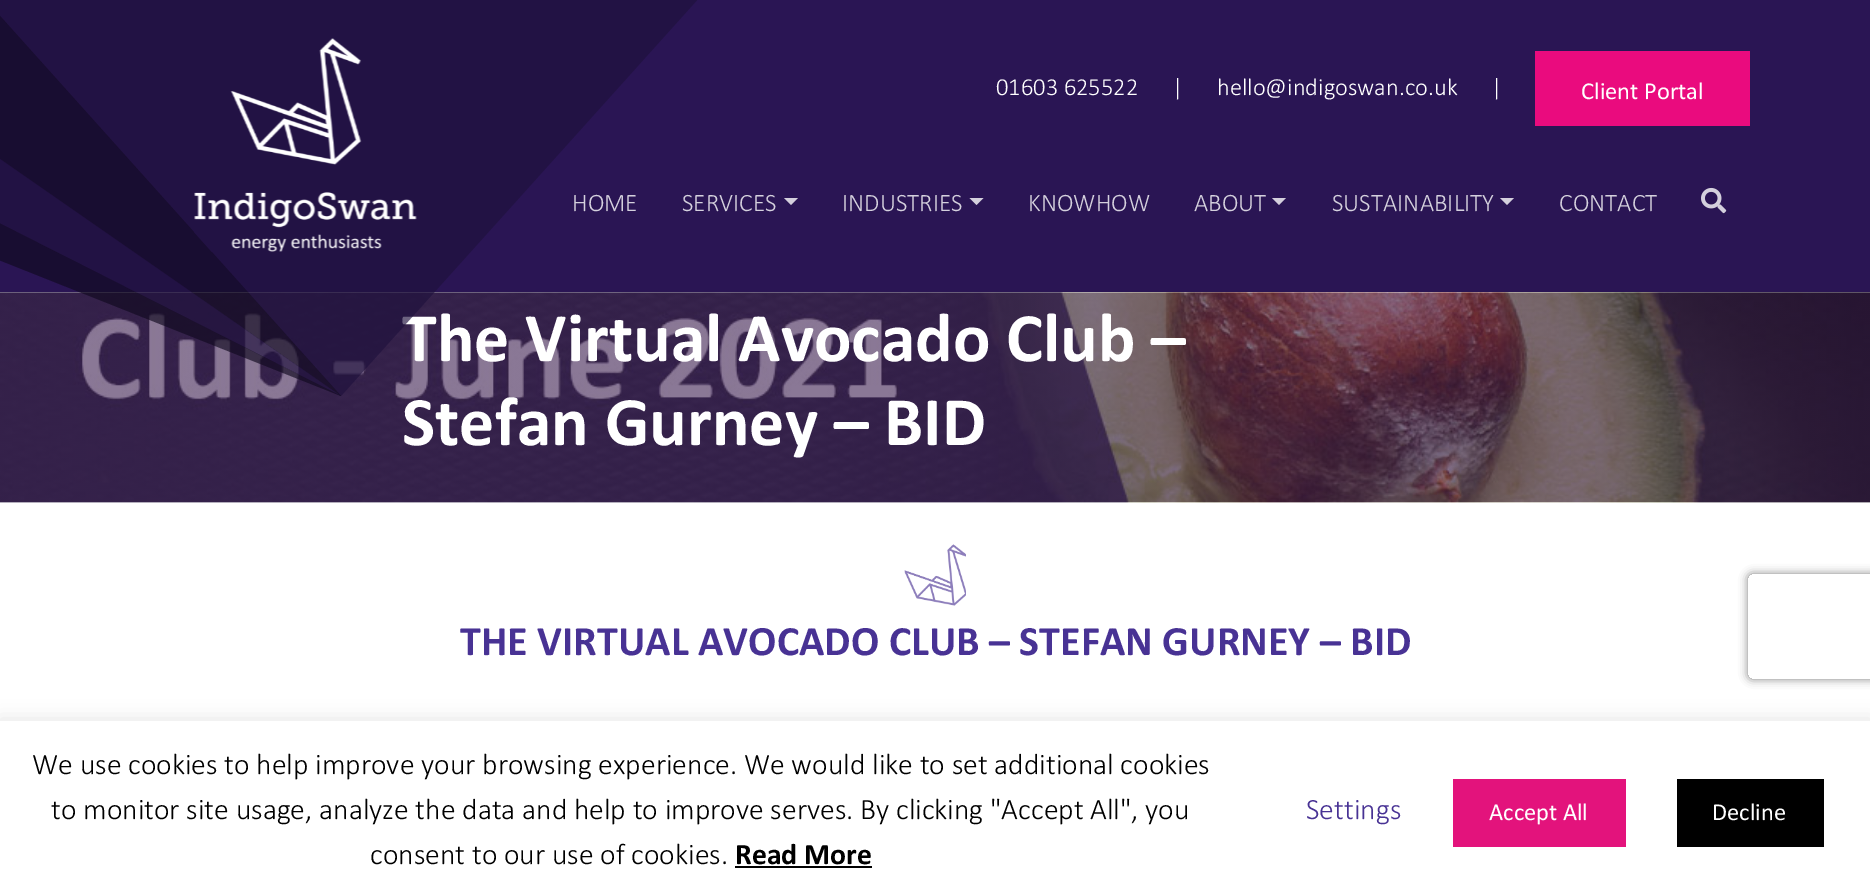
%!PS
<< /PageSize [1870 895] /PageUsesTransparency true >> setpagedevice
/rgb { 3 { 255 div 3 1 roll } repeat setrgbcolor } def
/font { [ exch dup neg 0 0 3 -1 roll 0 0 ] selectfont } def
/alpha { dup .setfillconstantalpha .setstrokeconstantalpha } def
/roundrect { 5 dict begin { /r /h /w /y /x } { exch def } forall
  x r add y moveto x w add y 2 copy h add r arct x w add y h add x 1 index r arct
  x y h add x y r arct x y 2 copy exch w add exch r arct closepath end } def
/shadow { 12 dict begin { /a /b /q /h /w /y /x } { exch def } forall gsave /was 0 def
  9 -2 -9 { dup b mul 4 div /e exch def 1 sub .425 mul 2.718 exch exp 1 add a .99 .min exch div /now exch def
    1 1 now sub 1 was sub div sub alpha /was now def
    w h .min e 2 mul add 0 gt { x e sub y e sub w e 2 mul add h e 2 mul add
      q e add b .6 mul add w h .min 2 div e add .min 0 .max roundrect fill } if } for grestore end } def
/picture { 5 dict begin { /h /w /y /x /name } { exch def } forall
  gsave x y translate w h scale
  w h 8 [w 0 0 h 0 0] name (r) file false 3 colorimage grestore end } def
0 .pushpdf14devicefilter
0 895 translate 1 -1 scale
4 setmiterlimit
255 255 255 rgb
0 0 1870 895 rectfill
42 21 84 rgb
0 0 1870 292 rectfill
234 11 126 rgb
1535 51 215 75 rectfill
212 208 221 rgb
784 198 moveto 798 198 lineto 791 205 lineto closepath fill
969.5 198 moveto 983.5 198 lineto 976.5 205 lineto closepath fill
1272 198 moveto 1286 198 lineto 1279 205 lineto closepath fill
1500 198 moveto 1514 198 lineto 1507 205 lineto closepath fill
(img/2.rgb) 1701 187 26 27 picture
(img/3.rgb) 0 292 1870 211 picture
(img/4.rgb) 904 544 62 62 picture
gsave
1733 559 moveto 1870 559 lineto 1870 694 lineto 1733 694 lineto closepath 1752 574 moveto 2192 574 lineto 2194 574 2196 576 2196 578 curveto 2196 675 lineto 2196 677 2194 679 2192 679 curveto 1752 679 lineto 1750 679 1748 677 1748 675 curveto 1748 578 lineto 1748 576 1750 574 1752 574 curveto closepath eoclip newpath
128 128 128 rgb
1748 574 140 105 4 4.5 1 shadow
grestore
172 171 171 rgb
0 719 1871 175 0 9 0.3 shadow
[
  [0 721 1870 174 255 255 255]
  [735 866 137 2 0 0 0]
  [1453 779 173 68 227 19 124]
  [1677 779 147 68 0 0 0]
] { aload pop rgb rectfill } forall
/Calibri-Light 24.5 font
255 255 255 rgb
[
  [(01603 625522) 996 95]
  [(|) 1172 95]
  [(hello@indigoswan.co.uk) 1217 95]
  [(|) 1491 95]
] { aload pop moveto show } forall
/Calibri-Regular 24.5 font
1581 99 moveto (Client Portal) show
/Calibri-Light 25.25 font
212 208 221 rgb
[
  [(INDUSTRIES) 842 211]
  [(KNOWHOW) 1028 211]
  [(ABOUT) 1194 211]
  [(SUSTAINABILITY) 1332 211]
  [(CONTACT) 1559 211]
] { aload pop moveto show } forall
/Calibri-Bold 70 font
255 255 255 rgb
402 361 moveto (The Virtual Avocado Club –) show
0.65 alpha
30 16 60 rgb
-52 -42 moveto 735 -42 lineto 341 396 lineto closepath fill
15 8 30 rgb
-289 -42 moveto -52 -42 lineto 341 396 lineto closepath fill
30 16 60 rgb
-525 -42 moveto -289 -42 lineto 341 396 lineto closepath fill
15 8 30 rgb
-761 -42 moveto -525 -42 lineto 341 396 lineto closepath fill
1 alpha
(img/1.rgb) 194 38 223 214 picture
/Calibri-Light 25.25 font
212 208 221 rgb
682 211 moveto (SERVICES) show
572 211 moveto (HOME) show
/Calibri-Bold 70 font
255 255 255 rgb
402 445 moveto (Stefan Gurney – BID) show
/Calibri-Bold 42 font
72 50 148 rgb
460 655 moveto (THE VIRTUAL AVOCADO CLUB – STEFAN GURNEY – BID) show
/Calibri-Light 29.75 font
0 0 0 rgb
[
  [(We use cookies to help improve your browsing experience. We would like to set additional cookies) 32 774]
  [(to monitor site usage, analyze the data and help to improve serves. By clicking "Accept All", you) 51 819]
  [(consent to our use of cookies.) 370 864]
] { aload pop moveto show } forall
/Calibri-Bold 29.75 font
735 864 moveto (Read More) show
/Calibri-Light 29.75 font
72 50 148 rgb
1306 819 moveto (Settings) show
/Calibri-Regular 24.5 font
255 255 255 rgb
1489 820 moveto (Accept All) show
1712 820 moveto (Decline) show
.poppdf14devicefilter showpage
